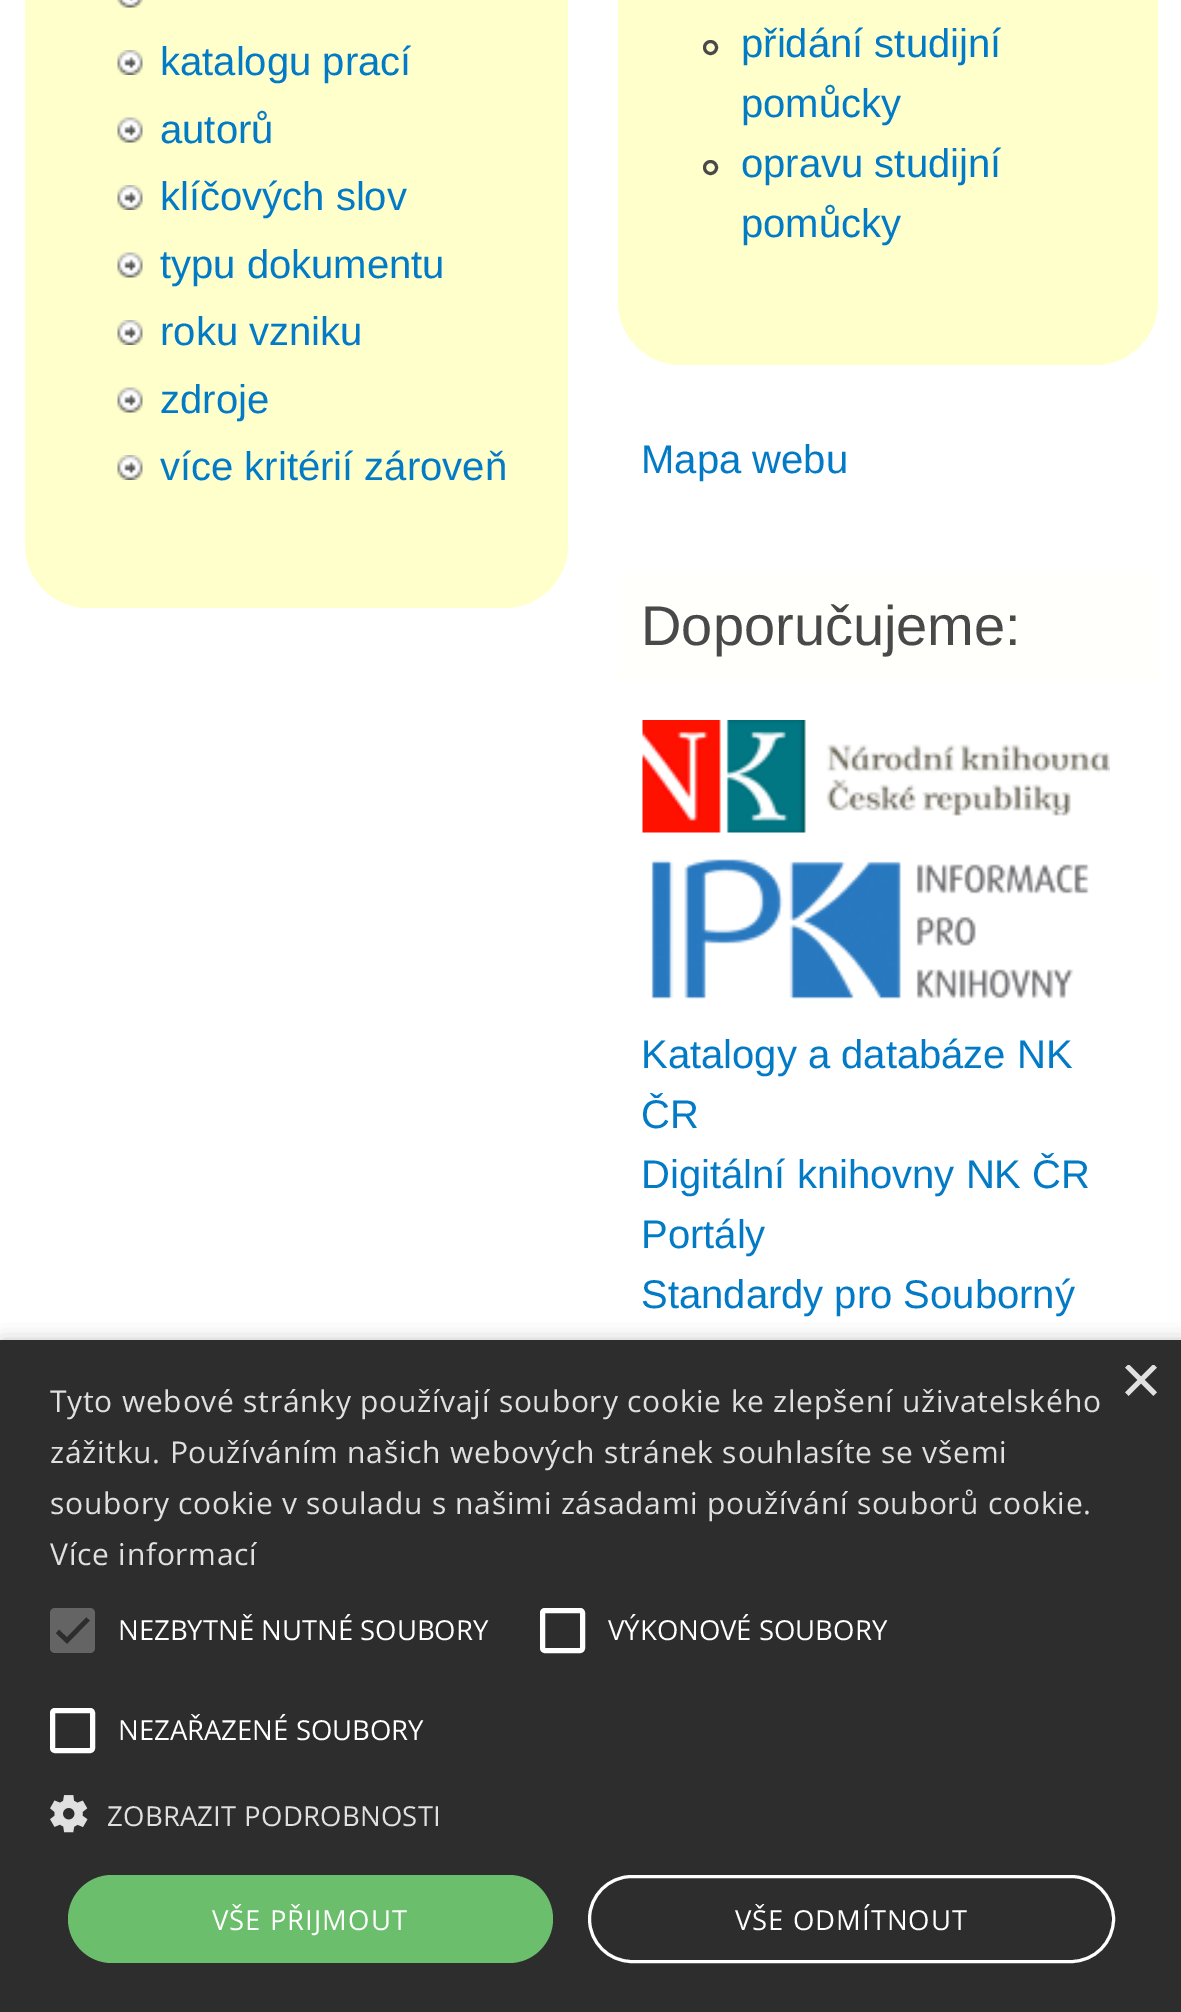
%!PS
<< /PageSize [1181 2012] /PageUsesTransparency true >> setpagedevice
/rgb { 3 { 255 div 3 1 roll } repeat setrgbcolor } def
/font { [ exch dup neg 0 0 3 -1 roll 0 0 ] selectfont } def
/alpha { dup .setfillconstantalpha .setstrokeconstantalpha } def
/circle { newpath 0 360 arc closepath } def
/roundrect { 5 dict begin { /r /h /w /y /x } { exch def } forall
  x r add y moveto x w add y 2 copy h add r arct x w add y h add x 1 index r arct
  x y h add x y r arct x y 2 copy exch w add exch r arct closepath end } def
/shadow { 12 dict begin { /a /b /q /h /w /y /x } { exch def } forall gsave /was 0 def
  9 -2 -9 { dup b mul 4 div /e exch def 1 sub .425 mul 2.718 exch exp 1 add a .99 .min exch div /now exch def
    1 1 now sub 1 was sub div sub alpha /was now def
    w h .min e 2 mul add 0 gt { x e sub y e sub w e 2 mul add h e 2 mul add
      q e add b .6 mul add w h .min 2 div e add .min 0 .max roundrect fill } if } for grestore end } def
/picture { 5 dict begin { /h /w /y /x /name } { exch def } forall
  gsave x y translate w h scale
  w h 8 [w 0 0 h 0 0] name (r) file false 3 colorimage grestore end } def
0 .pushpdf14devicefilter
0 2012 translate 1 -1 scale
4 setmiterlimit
255 255 255 rgb
0 0 1181 2012 rectfill
255 255 204 rgb
25 -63 543 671 63 roundrect fill
(img/1.rgb) 117 0 26 8 picture
(img/2.rgb) 117 50 26 25 picture
(img/3.rgb) 117 117 26 26 picture
(img/2.rgb) 117 185 26 25 picture
(img/3.rgb) 117 252 26 26 picture
(img/2.rgb) 117 320 26 25 picture
(img/3.rgb) 117 387 26 26 picture
(img/2.rgb) 117 455 26 25 picture
618 -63 540 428 63 roundrect fill
73 73 73 rgb
3 setlinewidth
710.5 47.5 6 circle stroke
710.5 167.5 6 circle stroke
255 255 252 rgb
628 573 moveto 1148 573 lineto 1153.5 573 1158 577.5 1158 583 curveto 1158 680 lineto 618 680 lineto 618 583 lineto 618 577.5 622.5 573 628 573 curveto closepath fill
(img/4.rgb) 642 720 468 113 picture
(img/5.rgb) 651 859 438 140 picture
0 0 0 rgb
3 1345 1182 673 0 10 0.35 shadow
45 45 45 rgb
0 1340 1181 672 rectfill
100 100 100 rgb
50 1608 45 45 5 roundrect fill
45 45 45 rgb
4.6 setlinewidth
57.5 1631.5 moveto 67 1640.5 lineto 88 1619 lineto stroke
255 255 255 rgb
5 setlinewidth
542.5 1610.5 40 40 2.5 roundrect stroke
52.5 1710.5 40 40 2.5 roundrect stroke
(img/6.rgb) 50 1795 38 38 picture
107 190 107 rgb
68 1875 485 88 44 roundrect fill
255 255 255 rgb
3 setlinewidth
589.5 1876.5 524 85 42.5 roundrect stroke
/LiberationSans-Regular 40 font
2 122 198 rgb
[
  [(katalogu prací) 160 75]
  [(autorů) 160 143]
  [(klíčových slov) 160 210]
  [(typu dokumentu) 160 278]
  [(roku vzniku) 160 345]
  [(zdroje) 160 413]
  [(více kritérií zároveň) 160 480]
  [(přidání studijní) 741 57]
  [(pomůcky) 741 117]
  [(opravu studijní) 741 177]
  [(pomůcky) 741 237]
  [(Mapa webu) 641 473]
] { aload pop moveto show } forall
/LiberationSans-Regular 56 font
73 73 73 rgb
641 645 moveto (Doporučujeme:) show
/LiberationSans-Regular 40 font
2 122 198 rgb
[
  [(Katalogy a databáze NK) 641 1068]
  [(ČR) 641 1128]
  [(Digitální knihovny NK ČR) 641 1188]
  [(Portály) 641 1248]
  [(Standardy pro Souborný) 641 1308]
] { aload pop moveto show } forall
gsave
1120 1365 38 38 rectclip
/LiberationSans-Regular 72 font
224 224 224 rgb
1120 1404 moveto (×) show
grestore
/OpenSans-Regular 30 font
224 224 224 rgb
50 1412 moveto 0.75 0 (Tyto webové stránky používají soubory cookie ke zlepšení uživatelského) ashow
50 1463 moveto 0.75 0 (zážitku. Používáním našich webových stránek souhlasíte se všemi) ashow
50 1514 moveto 0.75 0 (soubory cookie v souladu s našimi zásadami používání souborů cookie.) ashow
50 1565 moveto 0.75 0 (Více informací) ashow
/OpenSans-Regular 27.5 font
255 255 255 rgb
[
  [(NEZBYTNĚ NUTNÉ SOUBORY) 118 1640]
  [(VÝKONOVÉ SOUBORY) 608 1640]
  [(NEZAŘAZENÉ SOUBORY) 118 1740]
] { aload pop moveto show } forall
224 224 224 rgb
107 1826 moveto 0.25 0 (ZOBRAZIT PODROBNOSTI) ashow
255 255 255 rgb
212 1930 moveto 1 0 (VŠE PŘIJMOUT) ashow
735 1930 moveto 1 0 (VŠE ODMÍTNOUT) ashow
.poppdf14devicefilter showpage
